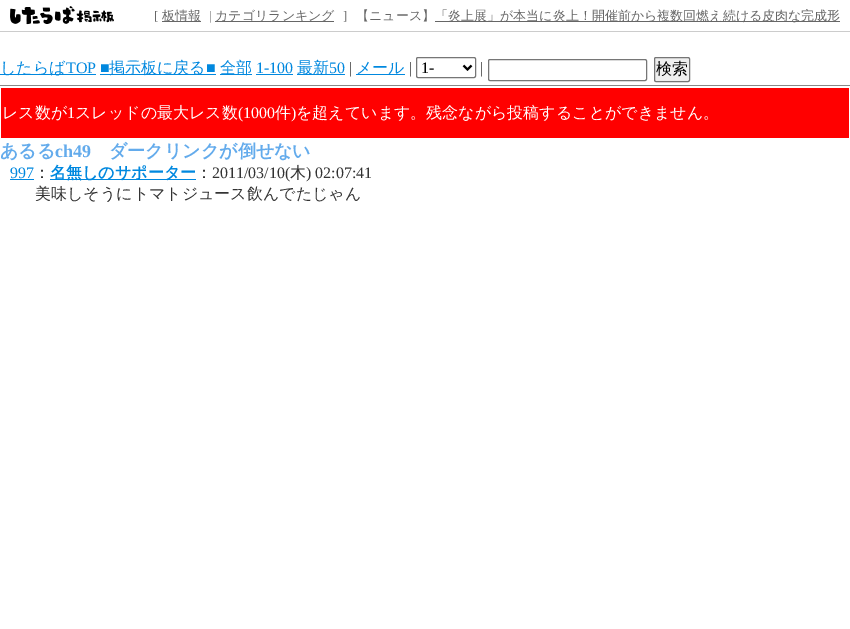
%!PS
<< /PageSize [850 629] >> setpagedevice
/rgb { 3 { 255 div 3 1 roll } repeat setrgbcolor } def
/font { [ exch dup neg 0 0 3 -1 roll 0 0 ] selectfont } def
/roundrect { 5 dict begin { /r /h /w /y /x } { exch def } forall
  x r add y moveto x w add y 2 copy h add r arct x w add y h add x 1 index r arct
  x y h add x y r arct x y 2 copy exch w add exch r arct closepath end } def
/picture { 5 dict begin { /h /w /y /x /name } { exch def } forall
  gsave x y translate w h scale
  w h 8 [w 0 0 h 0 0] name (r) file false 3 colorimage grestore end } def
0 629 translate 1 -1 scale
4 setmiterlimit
255 255 255 rgb
0 0 850 629 rectfill
204 204 204 rgb
0 31 850 1 rectfill
(img/1.rgb) 10 6 104 19 picture
[
  [162 21 39 1 102 102 102]
  [215 21 119 1 102 102 102]
  [435 21 405 1 102 102 102]
  [0 85 850 1 136 136 136]
  [0 74 96 1 0 136 223]
  [100 74 116 1 0 136 223]
  [220 74 32 1 0 136 223]
  [256 74 37 1 0 136 223]
  [297 74 48 1 0 136 223]
  [356 74 49 1 0 136 223]
] { aload pop rgb rectfill } forall
118 118 118 rgb
416.5 57.5 59 20 1.5 roundrect stroke
0 0 0 rgb
2 setlinewidth
463.5 65.5 moveto 467.5 69.5 lineto 471.5 65.5 lineto stroke
118 118 118 rgb
1 setlinewidth
488.5 59.5 158 21 1.5 roundrect stroke
239 239 239 rgb
654.5 57.5 35 24 1.5 roundrect gsave fill grestore
118 118 118 rgb
stroke
[
  [1 88 848 50 255 0 0]
  [10 179 24 1 0 136 223]
  [50 179 146 1 0 136 223]
] { aload pop rgb rectfill } forall
/LiberationSerif-Regular 13 font
102 102 102 rgb
154 20 moveto ([) show
/WenQuanYiZenHei-Medium 13 font
162 20 moveto (板情報) show
/LiberationSerif-Regular 13 font
209 20 moveto (|) show
/WenQuanYiZenHei-Medium 13 font
215 20 moveto (カテゴリランキング) show
/LiberationSerif-Regular 13 font
343 20 moveto (]) show
/WenQuanYiZenHei-Medium 13 font
356 20 moveto (【ニュース】) show
435 20 moveto (「炎上展」が本当に炎上！開催前から複数回燃え続ける皮肉な完成形) show
/WenQuanYiZenHei-Medium 16 font
0 136 223 rgb
0 73 moveto (したらば) show
/LiberationSerif-Regular 16 font
66 73 moveto (TOP ■) show
/WenQuanYiZenHei-Medium 16 font
109 73 moveto (掲示板に戻る) show
/LiberationSerif-Regular 16 font
206 73 moveto (■) show
/WenQuanYiZenHei-Medium 16 font
220 73 moveto (全部) show
/LiberationSerif-Regular 16 font
256 73 moveto (1-100) show
/WenQuanYiZenHei-Medium 16 font
297 73 moveto (最新) show
/LiberationSerif-Regular 16 font
329 73 moveto (50) show
51 51 51 rgb
349 73 moveto (|) show
/WenQuanYiZenHei-Medium 16 font
0 136 223 rgb
356 73 moveto (メール) show
/LiberationSerif-Regular 16 font
51 51 51 rgb
409 73 moveto (|) show
0 0 0 rgb
421 73 moveto (1-) show
51 51 51 rgb
480 73 moveto (|) show
/WenQuanYiZenHei-Medium 16 font
0 0 0 rgb
656 74 moveto (検索) show
255 255 255 rgb
2 118 moveto (レス数が) show
/LiberationSerif-Regular 16 font
67 118 moveto (1) show
/WenQuanYiZenHei-Medium 16 font
75 118 moveto (スレッドの最大レス数) show
/LiberationSerif-Regular 16 font
238 118 moveto (\(1000) show
/WenQuanYiZenHei-Medium 16 font
275 118 moveto (件) show
/LiberationSerif-Regular 16 font
291 118 moveto (\)) show
/WenQuanYiZenHei-Medium 16 font
296 118 moveto (を超えています。残念ながら投稿することができません。) show
/WenQuanYiZenHei-Bold 18 font
99 171 236 rgb
0 157 moveto (あるる) show
/LiberationSerif-Bold 18 font
55 157 moveto (ch49) show
/WenQuanYiZenHei-Bold 18 font
109 157 moveto (ダークリンクが倒せない) show
/LiberationSerif-Regular 16 font
0 136 223 rgb
10 178 moveto (997) show
/WenQuanYiZenHei-Medium 16 font
51 51 51 rgb
34 178 moveto (：) show
/WenQuanYiZenHei-Bold 16 font
0 136 223 rgb
50 178 moveto (名無しのサポーター) show
/WenQuanYiZenHei-Medium 16 font
51 51 51 rgb
196 178 moveto (：) show
/LiberationSerif-Regular 16 font
212 178 moveto (2011/03/10\() show
/WenQuanYiZenHei-Medium 16 font
290 178 moveto (木) show
/LiberationSerif-Regular 16 font
306 178 moveto (\) 02:07:41) show
/WenQuanYiZenHei-Medium 16 font
35 199 moveto (美味しそうにトマトジュース飲んでたじゃん) show
showpage
